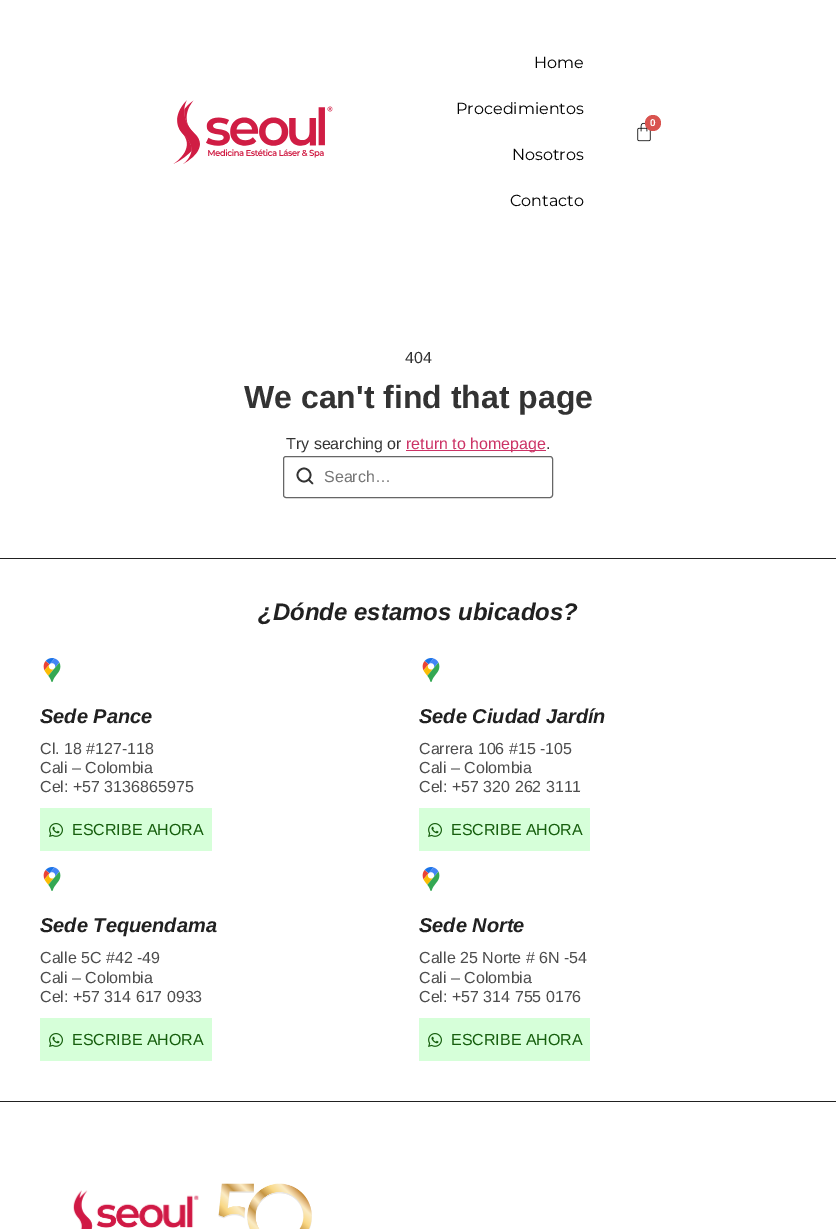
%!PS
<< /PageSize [836 1229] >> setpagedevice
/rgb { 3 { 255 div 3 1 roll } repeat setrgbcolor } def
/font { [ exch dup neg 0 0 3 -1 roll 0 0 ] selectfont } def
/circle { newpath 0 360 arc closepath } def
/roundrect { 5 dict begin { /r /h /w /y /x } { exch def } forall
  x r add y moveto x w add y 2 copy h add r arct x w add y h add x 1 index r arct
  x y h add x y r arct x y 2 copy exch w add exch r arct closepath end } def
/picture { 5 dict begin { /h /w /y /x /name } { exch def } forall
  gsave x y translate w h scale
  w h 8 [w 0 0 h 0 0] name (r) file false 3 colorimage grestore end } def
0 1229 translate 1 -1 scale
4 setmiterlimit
255 255 255 rgb
0 0 836 1229 rectfill
(img/1.rgb) 173 100 160 64 picture
(img/2.rgb) 637 122 14 20 picture
217 83 79 rgb
653 123 8 circle fill
204 51 102 rgb
406 450 140 1 rectfill
102 102 102 rgb
283.5 456.5 269 41 2.5 roundrect stroke
51 51 51 rgb
1.7 setlinewidth
304 475 6.5 circle stroke
1 setlinecap
1 setlinejoin
312.5 483.5 moveto 309 480 lineto stroke
33 33 33 rgb
0 558 836 1 rectfill
0 1101 836 1 rectfill
(img/3.rgb) 43 658 18 24 picture
214 255 217 rgb
40 808 172 43 rectfill
(img/4.rgb) 49 823 14 14 picture
(img/3.rgb) 422 658 18 24 picture
419 808 171 43 rectfill
(img/4.rgb) 428 823 14 14 picture
(img/3.rgb) 43 867 18 24 picture
40 1018 172 43 rectfill
(img/4.rgb) 49 1033 14 14 picture
(img/3.rgb) 422 867 18 24 picture
419 1018 171 43 rectfill
(img/4.rgb) 428 1033 14 14 picture
(img/5.rgb) 73 1183 239 46 picture
/Montserrat-Regular 16 font
3 3 3 rgb
[
  [(Home) 534 68]
  [(Procedimientos) 456 114]
  [(Nosotros) 512 160]
  [(Contacto) 510 206]
] { aload pop moveto show } forall
/LiberationSans-Bold 10 font
255 255 255 rgb
650 126 moveto (0) show
/LiberationSans-Regular 16 font
51 51 51 rgb
405 363 moveto (404) show
/LiberationSans-Bold 32 font
244 408 moveto (We can't find that page) show
/LiberationSans-Regular 16 font
286 449 moveto (Try searching or) show
204 51 102 rgb
406 449 moveto (return to homepage) show
51 51 51 rgb
546 449 moveto (.) show
117 117 117 rgb
324 482 moveto (Search…) show
/LiberationSans-BoldItalic 24 font
33 33 33 rgb
258 620 moveto (¿Dónde estamos ubicados?) show
/LiberationSans-BoldItalic 20 font
40 723 moveto (Sede Pance) show
/LiberationSans-Regular 16 font
77 77 77 rgb
[
  [(Cl. 18 #127-118) 40 754]
  [(Cali – Colombia) 40 773]
  [(Cel: +57 3136865975) 40 792]
] { aload pop moveto show } forall
22 94 13 rgb
72 835 moveto (ESCRIBE AHORA) show
/LiberationSans-BoldItalic 20 font
33 33 33 rgb
419 723 moveto (Sede Ciudad Jardín) show
/LiberationSans-Regular 16 font
77 77 77 rgb
[
  [(Carrera 106 #15 -105) 419 754]
  [(Cali – Colombia) 419 773]
  [(Cel: +57 320 262 3111) 419 792]
] { aload pop moveto show } forall
22 94 13 rgb
451 835 moveto (ESCRIBE AHORA) show
/LiberationSans-BoldItalic 20 font
33 33 33 rgb
40 932 moveto (Sede Tequendama) show
/LiberationSans-Regular 16 font
77 77 77 rgb
[
  [(Calle 5C #42 -49) 40 963]
  [(Cali – Colombia) 40 983]
  [(Cel: +57 314 617 0933) 40 1002]
] { aload pop moveto show } forall
22 94 13 rgb
72 1045 moveto (ESCRIBE AHORA) show
/LiberationSans-BoldItalic 20 font
33 33 33 rgb
419 932 moveto (Sede Norte) show
/LiberationSans-Regular 16 font
77 77 77 rgb
[
  [(Calle 25 Norte # 6N -54) 419 963]
  [(Cali – Colombia) 419 983]
  [(Cel: +57 314 755 0176) 419 1002]
] { aload pop moveto show } forall
22 94 13 rgb
451 1045 moveto (ESCRIBE AHORA) show
showpage
